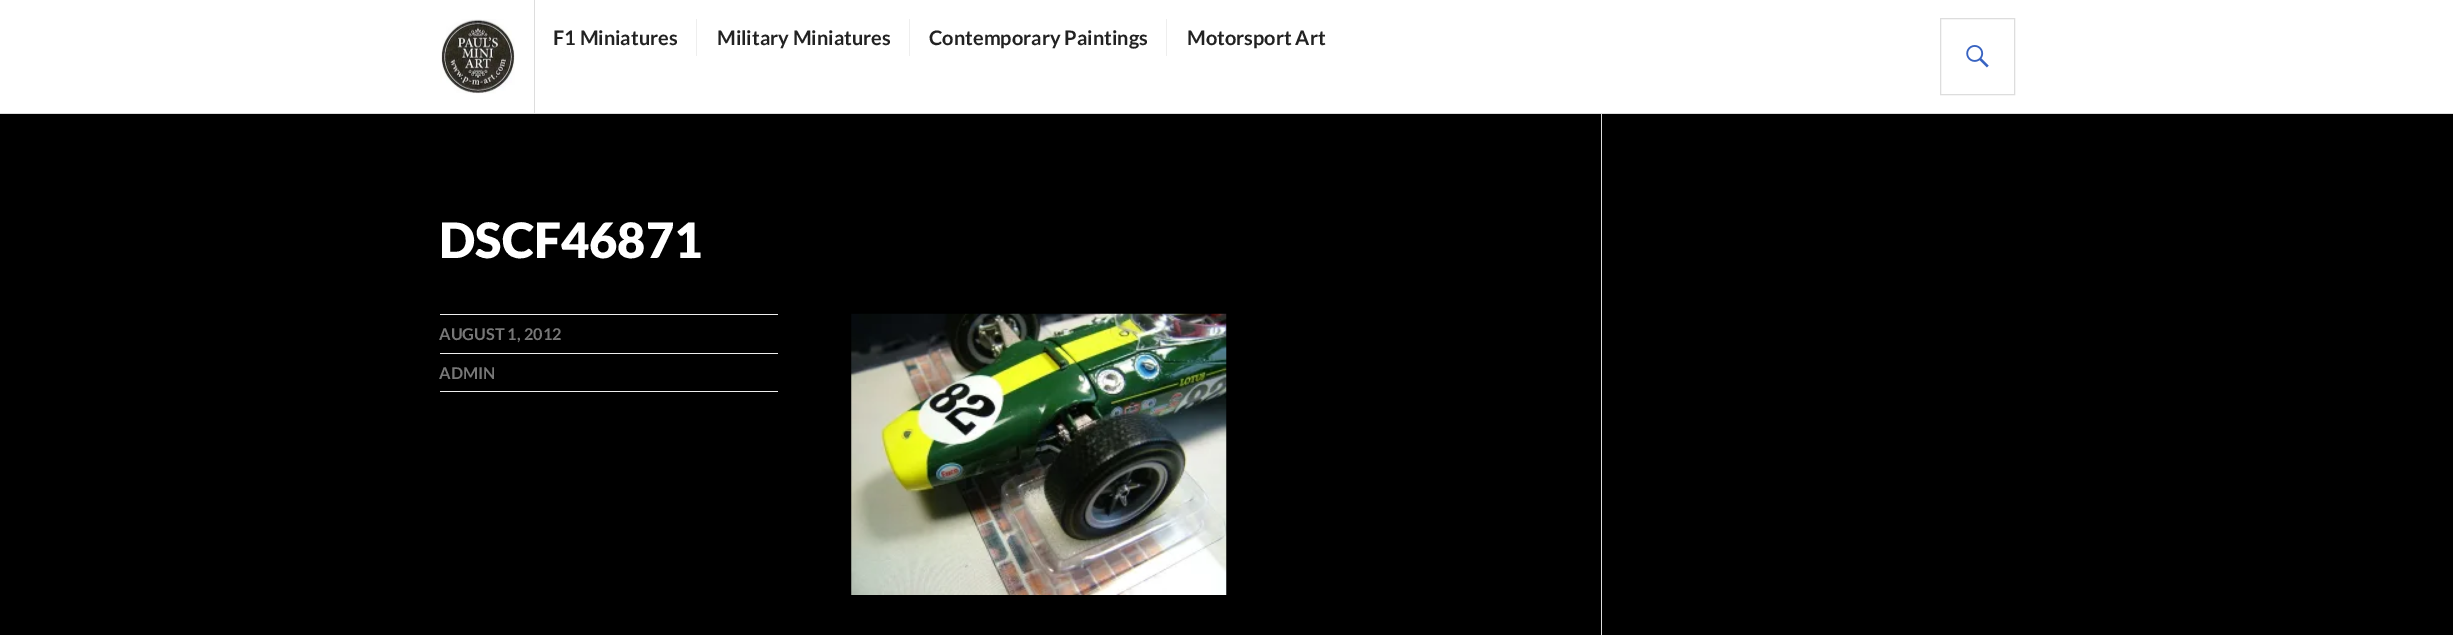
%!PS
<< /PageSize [2453 635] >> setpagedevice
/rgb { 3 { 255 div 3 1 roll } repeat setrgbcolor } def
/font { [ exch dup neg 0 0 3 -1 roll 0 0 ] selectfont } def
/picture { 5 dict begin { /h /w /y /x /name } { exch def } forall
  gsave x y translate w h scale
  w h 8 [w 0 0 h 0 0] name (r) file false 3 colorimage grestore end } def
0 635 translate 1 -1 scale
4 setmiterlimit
0 0 0 rgb
0 0 2453 635 rectfill
255 255 255 rgb
0 0 2453 113 rectfill
221 221 221 rgb
0 113 2453 1 rectfill
(img/1.rgb) 440 19 75 75 picture
[
  [534 0 1 113 221 221 221]
  [696 19 1 37 238 238 238]
  [909 19 1 37 238 238 238]
  [1166 19 1 37 238 238 238]
] { aload pop rgb rectfill } forall
221 221 221 rgb
1940.5 18.5 74 76 rectstroke
(img/2.rgb) 1966 45 23 23 picture
[
  [1601 114 1 521 221 221 221]
  [440 314 338 1 238 238 238]
  [440 353 338 1 238 238 238]
  [440 391 338 1 238 238 238]
] { aload pop rgb rectfill } forall
(img/3.rgb) 851 313 376 282 picture
/Lato-Bold 20 font
34 34 34 rgb
[
  [(F1 Miniatures) 553 45]
  [(Military Miniatures) 717 45]
  [(Contemporary Paintings) 929 45]
  [(Motorsport Art) 1187 45]
] { aload pop moveto show } forall
/Lato-Black 48.75 font
255 255 255 rgb
439 258 moveto (DSCF46871) show
/Lato-Bold 16.25 font
119 119 119 rgb
439 340 moveto (AUGUST 1, 2012) show
439 379 moveto (ADMIN) show
showpage
